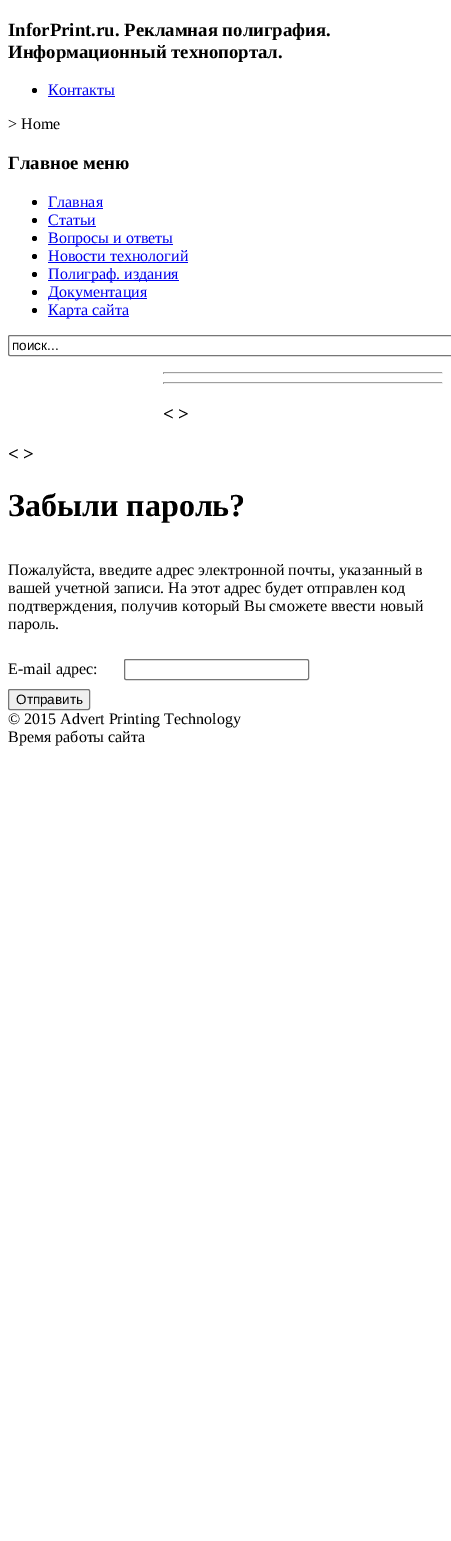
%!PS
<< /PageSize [451 1541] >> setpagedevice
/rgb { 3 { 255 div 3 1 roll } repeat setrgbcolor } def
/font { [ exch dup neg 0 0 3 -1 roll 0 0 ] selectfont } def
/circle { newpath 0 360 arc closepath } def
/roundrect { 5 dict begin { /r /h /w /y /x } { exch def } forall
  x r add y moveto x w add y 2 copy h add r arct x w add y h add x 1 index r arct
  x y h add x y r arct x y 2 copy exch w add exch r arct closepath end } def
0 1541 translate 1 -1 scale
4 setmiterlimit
255 255 255 rgb
0 0 451 1541 rectfill
0 0 0 rgb
34.5 90.5 2.5 circle fill
0 0 238 rgb
48 96 67 1 rectfill
0 0 0 rgb
34.5 202.5 2.5 circle fill
0 0 238 rgb
48 208 55 1 rectfill
0 0 0 rgb
34.5 220.5 2.5 circle fill
0 0 238 rgb
48 226 48 1 rectfill
0 0 0 rgb
34.5 238.5 2.5 circle fill
0 0 238 rgb
48 244 125 1 rectfill
0 0 0 rgb
34.5 256.5 2.5 circle fill
0 0 238 rgb
48 262 140 1 rectfill
0 0 0 rgb
34.5 274.5 2.5 circle fill
0 0 238 rgb
48 280 131 1 rectfill
0 0 0 rgb
34.5 292.5 2.5 circle fill
0 0 238 rgb
48 298 99 1 rectfill
0 0 0 rgb
34.5 310.5 2.5 circle fill
0 0 238 rgb
48 316 81 1 rectfill
118 118 118 rgb
8.5 335.5 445 20 1.5 roundrect stroke
[
  [163 372 280 1 159 159 159]
  [442 372 1 2 238 238 238]
  [163 373 280 1 238 238 238]
  [163 372 1 2 159 159 159]
  [163 382 280 1 159 159 159]
  [442 382 1 2 238 238 238]
  [163 383 280 1 238 238 238]
  [163 382 1 2 159 159 159]
] { aload pop rgb rectfill } forall
118 118 118 rgb
124.5 659.5 184 20 1.5 roundrect stroke
239 239 239 rgb
8.5 689.5 81 20 1.5 roundrect gsave fill grestore
118 118 118 rgb
stroke
/LiberationSerif-Bold 18.75 font
0 0 0 rgb
8 36 moveto (InforPrint.ru. Рекламная полиграфия.) show
8 58 moveto (Информационный технопортал.) show
/LiberationSerif-Regular 16 font
0 0 238 rgb
48 95 moveto (Контакты) show
0 0 0 rgb
8 129 moveto (> Home) show
/LiberationSerif-Bold 18.75 font
8 169 moveto (Главное меню) show
/LiberationSerif-Regular 16 font
0 0 238 rgb
[
  [(Главная) 48 207]
  [(Статьи) 48 225]
  [(Вопросы и ответы) 48 243]
  [(Новости технологий) 48 261]
  [(Полиграф. издания) 48 279]
  [(Документация) 48 297]
  [(Карта сайта) 48 315]
] { aload pop moveto show } forall
/LiberationSans-Regular 13.5 font
0 0 0 rgb
12 350 moveto (поиск...) show
/LiberationSerif-Bold 18.75 font
163 420 moveto (< >) show
8 460 moveto (< >) show
/LiberationSerif-Bold 32 font
8 516 moveto (Забыли пароль?) show
/LiberationSerif-Regular 16 font
[
  [(Пожалуйста, введите адрес электронной почты, указанный в) 8 575]
  [(вашей учетной записи. На этот адрес будет отправлен код) 8 593]
  [(подтверждения, получив который Вы сможете ввести новый) 8 611]
  [(пароль.) 8 629]
  [(E-mail адрес:) 8 674]
] { aload pop moveto show } forall
/LiberationSans-Regular 13.5 font
16 704 moveto (Отправить) show
/LiberationSerif-Regular 16 font
8 724 moveto (© 2015 Advert Printing Technology) show
8 742 moveto (Время работы сайта) show
showpage
